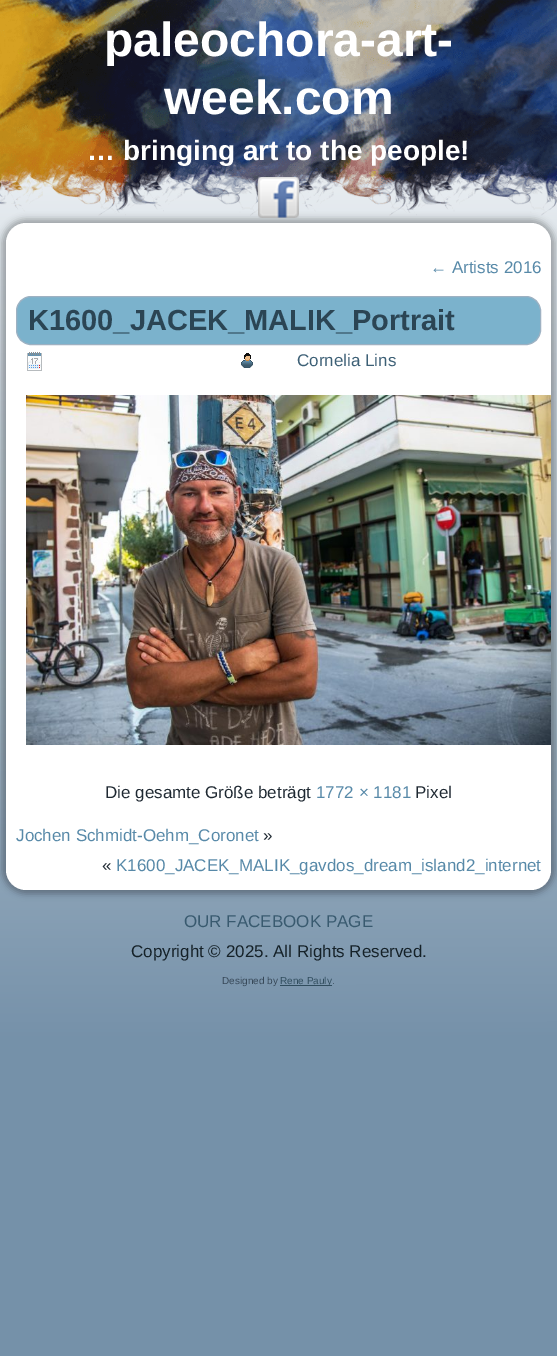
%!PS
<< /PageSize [557 1356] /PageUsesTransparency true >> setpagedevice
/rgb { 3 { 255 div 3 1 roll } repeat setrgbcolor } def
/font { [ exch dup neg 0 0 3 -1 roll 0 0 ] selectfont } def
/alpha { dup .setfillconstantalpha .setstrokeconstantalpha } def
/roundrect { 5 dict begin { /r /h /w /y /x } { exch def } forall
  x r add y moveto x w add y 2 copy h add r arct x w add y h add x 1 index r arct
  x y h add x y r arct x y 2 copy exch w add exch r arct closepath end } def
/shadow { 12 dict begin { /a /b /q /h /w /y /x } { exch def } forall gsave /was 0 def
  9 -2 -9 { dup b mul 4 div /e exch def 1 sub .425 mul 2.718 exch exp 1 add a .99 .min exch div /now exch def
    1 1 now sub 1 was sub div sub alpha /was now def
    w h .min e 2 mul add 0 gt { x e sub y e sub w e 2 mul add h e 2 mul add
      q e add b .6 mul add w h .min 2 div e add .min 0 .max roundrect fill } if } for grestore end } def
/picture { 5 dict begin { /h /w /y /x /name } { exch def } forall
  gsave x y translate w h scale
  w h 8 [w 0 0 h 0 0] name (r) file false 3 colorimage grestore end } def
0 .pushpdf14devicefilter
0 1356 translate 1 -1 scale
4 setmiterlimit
255 255 255 rgb
0 0 557 1356 rectfill
gsave 0 19 moveto 557 19 lineto 557 1356 lineto 0 1356 lineto closepath clip newpath
<< /ShadingType 2 /ColorSpace /DeviceRGB /Coords [278 0 279 1356] /Extend [true true] /Function << /FunctionType 3 /Domain [0 1] /Functions [<< /FunctionType 2 /Domain [0 1] /C0 [1 1 1] /C1 [0.459 0.569 0.663] /N 1 >> << /FunctionType 2 /Domain [0 1] /C0 [0.459 0.569 0.663] /C1 [0.459 0.569 0.663] /N 1 >>] /Bounds [0.77] /Encode [0 1 0 1] >> >> shfill grestore
(img/1.rgb) 0 0 557 216 picture
0 0 0 rgb
2 219 553 675 24 3.5 0.3 shadow
(img/2.rgb) 258 177 41 41 picture
255 255 255 rgb
6 223 545 667 20 roundrect fill
123 178 204 rgb
16.5 296.5 524 48 14.5 roundrect gsave fill grestore
158 177 194 rgb
stroke
(img/3.rgb) 27 352 15 19 picture
(img/4.rgb) 241 353 12 15 picture
(img/5.rgb) 26 395 525 350 picture
49 77 94 rgb
280 985 52 1 rectfill
/LiberationSans-Bold 48 font
255 255 255 rgb
104 56 moveto (paleochora-art-) show
164 114 moveto (week.com) show
/LiberationSans-Bold 28 font
87 160 moveto (… bringing art to the people!) show
/LiberationSans-Regular 17 font
87 137 168 rgb
430 273 moveto (← Artists 2016) show
/LiberationSans-Bold 29 font
43 69 84 rgb
28 330 moveto (K1600_JACEK_MALIK_Portrait) show
/LiberationSans-Regular 17 font
61 96 118 rgb
297 366 moveto (Cornelia Lins) show
31 41 50 rgb
105 798 moveto (Die gesamte Größe beträgt) show
87 137 168 rgb
316 798 moveto (1772 × 1181) show
31 41 50 rgb
415 798 moveto (Pixel) show
87 137 168 rgb
16 841 moveto (Jochen Schmidt-Oehm_Coronet) show
31 41 50 rgb
263 841 moveto (») show
102 871 moveto («) show
87 137 168 rgb
116 871 moveto (K1600_JACEK_MALIK_gavdos_dream_island2_internet) show
57 90 111 rgb
184 927 moveto (OUR FACEBOOK PAGE) show
21 33 40 rgb
131 957 moveto (Copyright © 2025. All Rights Reserved.) show
/LiberationSans-Regular 10 font
55 72 88 rgb
222 984 moveto (Designed by) show
49 77 94 rgb
280 984 moveto (Rene Pauly) show
55 72 88 rgb
332 984 moveto (.) show
.poppdf14devicefilter showpage
